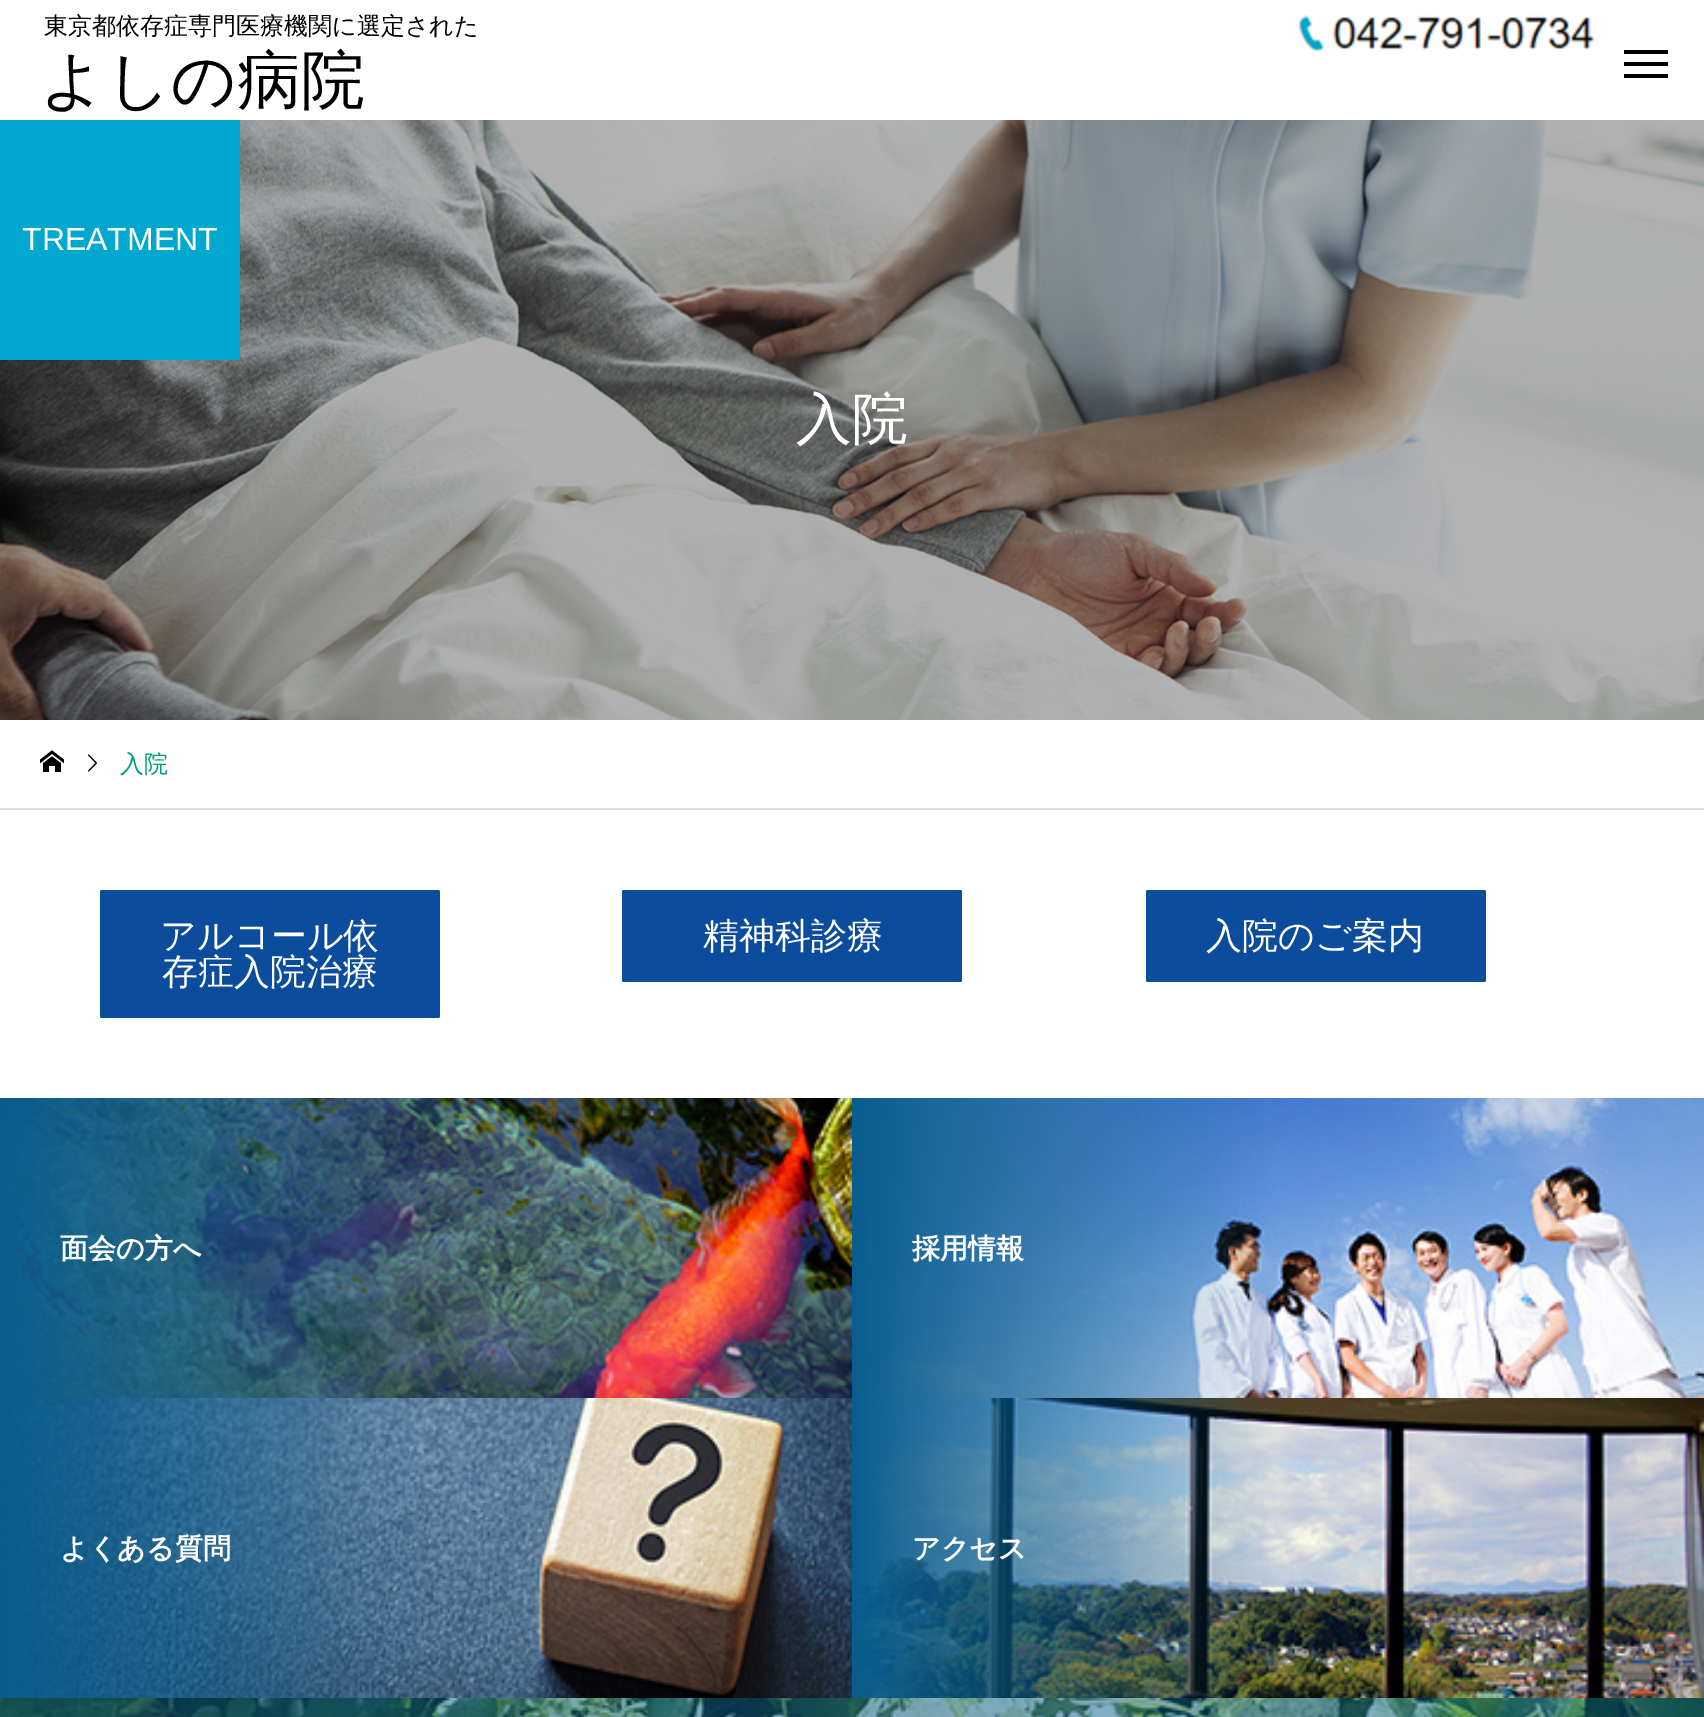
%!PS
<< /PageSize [1704 1717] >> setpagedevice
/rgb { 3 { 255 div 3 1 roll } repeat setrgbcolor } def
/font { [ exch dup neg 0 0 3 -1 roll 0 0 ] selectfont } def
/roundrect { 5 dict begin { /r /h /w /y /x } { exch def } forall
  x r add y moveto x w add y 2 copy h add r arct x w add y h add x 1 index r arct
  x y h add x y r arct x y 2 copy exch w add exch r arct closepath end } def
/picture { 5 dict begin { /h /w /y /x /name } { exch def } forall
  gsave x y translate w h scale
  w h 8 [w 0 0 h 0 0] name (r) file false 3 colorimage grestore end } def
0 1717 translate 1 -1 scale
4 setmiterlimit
255 255 255 rgb
0 0 1704 1717 rectfill
[
  [1624 50 44 4 0 0 0]
  [1624 62 44 4 0 0 0]
  [1624 74 44 4 0 0 0]
] { aload pop rgb rectfill } forall
(img/1.rgb) 0 120 1704 600 picture
0 167 206 rgb
0 120 240 240 rectfill
221 221 221 rgb
0 808 1704 2 rectfill
(img/2.rgb) 40 750 24 22 picture
(img/3.rgb) 88 754 9 18 picture
12 76 157 rgb
100 890 340 128 2 roundrect fill
622 890 340 92 2 roundrect fill
1146 890 340 92 2 roundrect fill
(img/4.rgb) 0 1098 852 300 picture
(img/5.rgb) 852 1098 852 300 picture
(img/6.rgb) 0 1398 852 300 picture
(img/7.rgb) 852 1398 852 300 picture
(img/8.rgb) 0 1698 1704 19 picture
(img/9.rgb) 1297 15 298 37 picture
/WenQuanYiZenHei-Medium 24 font
0 0 0 rgb
44 34 moveto (東京都依存症専門医療機関に選定された) show
/WenQuanYiZenHei-Medium 64 font
40 102 moveto (よしの病院) show
/LiberationSans-Regular 32 font
255 255 255 rgb
22 250 moveto (TREATMENT) show
/WenQuanYiZenHei-Medium 56 font
796 438 moveto (入院) show
/WenQuanYiZenHei-Medium 24 font
0 158 118 rgb
120 772 moveto (入院) show
/WenQuanYiZenHei-Medium 36 font
255 255 255 rgb
[
  [(アルコール依) 160 948]
  [(存症入院治療) 162 984]
  [(精神科診療) 703 948]
  [(入院のご案内) 1206 948]
] { aload pop moveto show } forall
/WenQuanYiZenHei-Bold 28 font
[
  [(面会の方へ) 60 1258]
  [(採用情報) 912 1258]
  [(よくある質問) 60 1558]
  [(アクセス) 912 1558]
] { aload pop moveto show } forall
showpage
